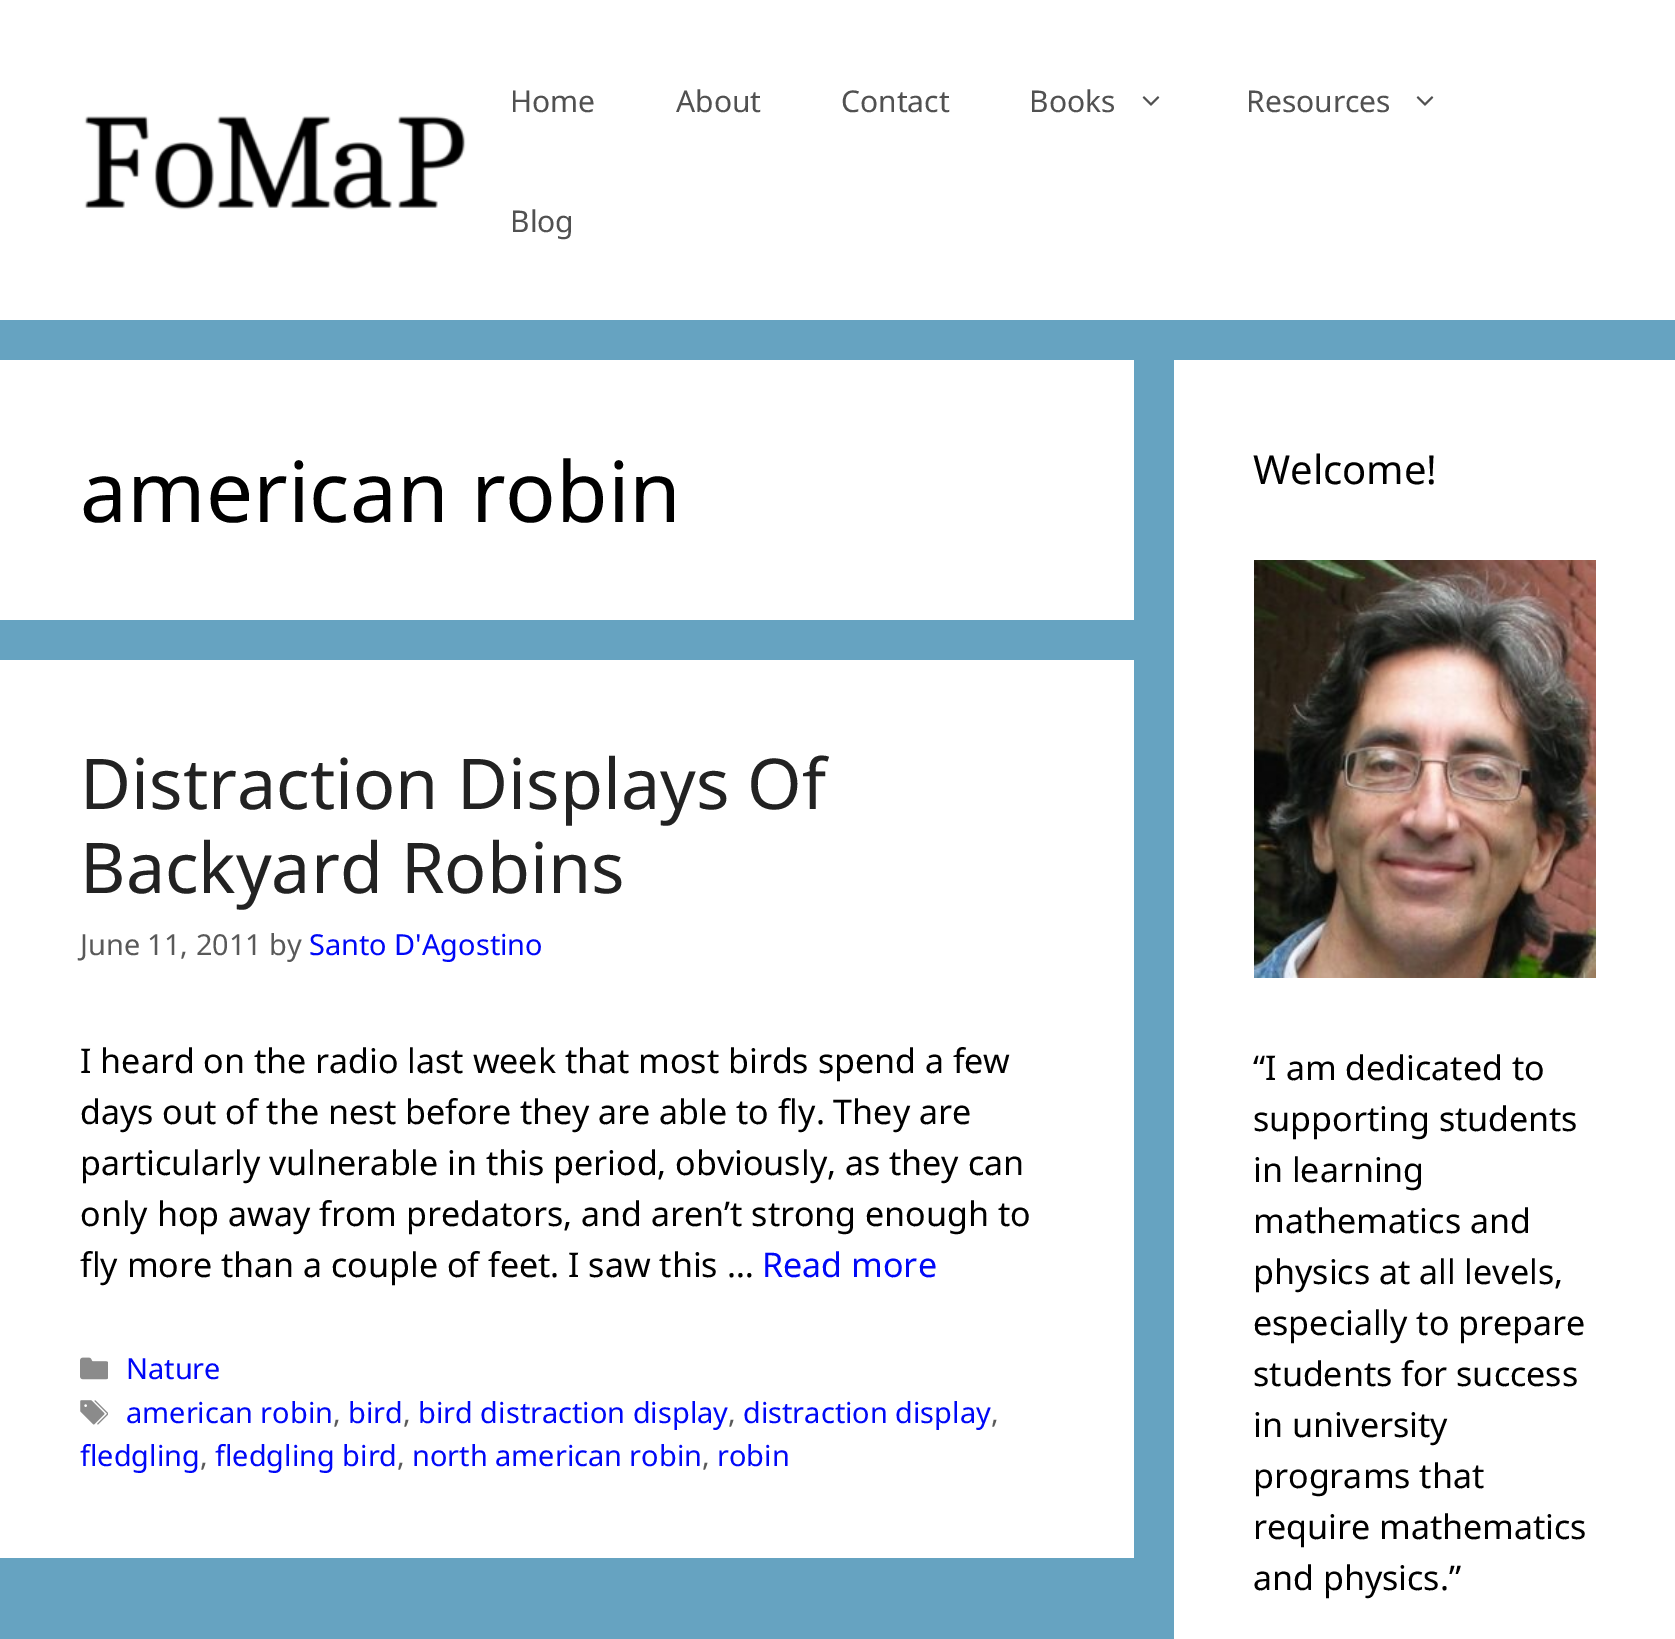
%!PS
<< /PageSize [1675 1639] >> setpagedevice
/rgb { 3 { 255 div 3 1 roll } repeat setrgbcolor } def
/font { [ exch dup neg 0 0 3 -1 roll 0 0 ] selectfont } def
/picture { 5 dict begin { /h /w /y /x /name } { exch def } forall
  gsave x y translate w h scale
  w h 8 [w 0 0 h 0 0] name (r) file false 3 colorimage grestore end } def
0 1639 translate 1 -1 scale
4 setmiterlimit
102 163 193 rgb
0 0 1675 1639 rectfill
255 255 255 rgb
0 0 1675 320 rectfill
(img/1.rgb) 84 116 382 94 picture
(img/2.rgb) 1142 96 18 10 picture
(img/2.rgb) 1416 96 18 10 picture
0 360 1134 260 rectfill
0 660 1134 898 rectfill
(img/3.rgb) 80 1357 28 23 picture
(img/4.rgb) 80 1400 28 25 picture
1174 360 501 1279 rectfill
(img/5.rgb) 1254 560 342 418 picture
/NotoSans-Regular 30 font
81 81 81 rgb
[
  [(Home) 510 112]
  [(About) 676 112]
  [(Contact) 841 112]
  [(Books) 1029 112]
  [(Resources) 1246 112]
  [(Blog) 510 232]
] { aload pop moveto show } forall
/NotoSans-Regular 84 font
0 0 0 rgb
80 522 moveto (american robin) show
/NotoSans-Regular 70 font
34 34 34 rgb
80 809 moveto (Distraction Displays Of) show
80 893 moveto (Backyard Robins) show
/NotoSans-Regular 28.9 font
89 89 89 rgb
80 955 moveto (June 11, 2011 by) show
0 8 247 rgb
309 955 moveto (Santo D'Agostino) show
/NotoSans-Regular 34 font
0 0 0 rgb
[
  [(I heard on the radio last week that most birds spend a few) 80 1073]
  [(days out of the nest before they are able to fly. They are) 80 1124]
  [(particularly vulnerable in this period, obviously, as they can) 80 1175]
  [(only hop away from predators, and aren’t strong enough to) 80 1226]
  [(fly more than a couple of feet. I saw this …) 80 1277]
] { aload pop moveto show } forall
0 8 247 rgb
762 1277 moveto (Read more) show
/NotoSans-Regular 28.9 font
126 1379 moveto (Nature) show
126 1423 moveto (american robin) show
89 89 89 rgb
333 1423 moveto (,) show
0 8 247 rgb
348 1423 moveto (bird) show
89 89 89 rgb
403 1423 moveto (,) show
0 8 247 rgb
418 1423 moveto (bird distraction display) show
89 89 89 rgb
728 1423 moveto (,) show
0 8 247 rgb
743 1423 moveto (distraction display) show
89 89 89 rgb
991 1423 moveto (,) show
0 8 247 rgb
80 1466 moveto (fledgling) show
89 89 89 rgb
200 1466 moveto (,) show
0 8 247 rgb
215 1466 moveto (fledgling bird) show
89 89 89 rgb
397 1466 moveto (,) show
0 8 247 rgb
412 1466 moveto (north american robin) show
89 89 89 rgb
702 1466 moveto (,) show
0 8 247 rgb
717 1466 moveto (robin) show
/NotoSans-Regular 40 font
0 0 0 rgb
1253 484 moveto (Welcome!) show
/NotoSans-Regular 34 font
[
  [(“I am dedicated to) 1253 1080]
  [(supporting students) 1253 1131]
  [(in learning) 1253 1182]
  [(mathematics and) 1253 1233]
  [(physics at all levels,) 1253 1284]
  [(especially to prepare) 1253 1335]
  [(students for success) 1253 1386]
  [(in university) 1253 1437]
  [(programs that) 1253 1488]
  [(require mathematics) 1253 1539]
  [(and physics.”) 1253 1590]
] { aload pop moveto show } forall
showpage
